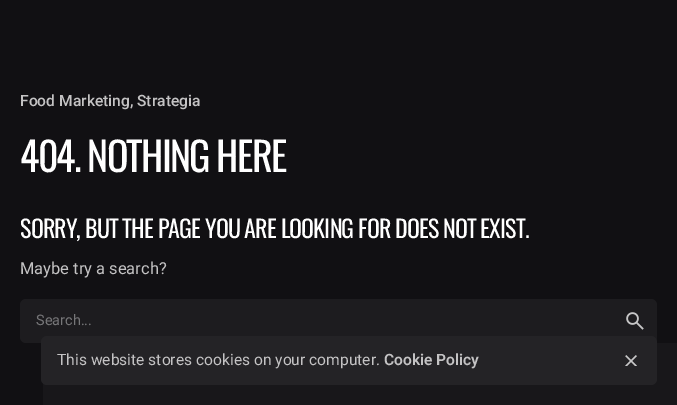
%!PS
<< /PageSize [677 405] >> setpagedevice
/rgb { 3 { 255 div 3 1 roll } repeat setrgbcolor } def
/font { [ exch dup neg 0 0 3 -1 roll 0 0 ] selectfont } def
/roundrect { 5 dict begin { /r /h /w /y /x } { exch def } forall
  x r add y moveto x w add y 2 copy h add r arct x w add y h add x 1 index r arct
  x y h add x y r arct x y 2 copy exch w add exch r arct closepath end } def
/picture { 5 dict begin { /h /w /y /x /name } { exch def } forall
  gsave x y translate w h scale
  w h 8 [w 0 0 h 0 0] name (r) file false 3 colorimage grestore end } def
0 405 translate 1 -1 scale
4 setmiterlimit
17 16 19 rgb
0 0 677 405 rectfill
29 28 31 rgb
20 299 637 44 6 roundrect fill
(img/1.rgb) 626 312 18 18 picture
24 23 26 rgb
43 343 634 62 rectfill
36 35 38 rgb
41 336 616 49 6 roundrect fill
(img/2.rgb) 625 355 12 11 picture
/Roboto-Medium 15.6 font
196 195 196 rgb
20 106 moveto (Food Marketing, Strategia) show
/Oswald-Regular 40 font
255 255 255 rgb
20 172 moveto -1.75 0 (404. NOTHING HERE) ashow
/Oswald-Regular 24 font
20 238 moveto -0.85 0 (SORRY, BUT THE PAGE YOU ARE LOOKING FOR DOES NOT EXIST.) ashow
/Roboto-Regular 16.5 font
196 195 196 rgb
20 274 moveto (Maybe try a search?) show
/Roboto-Regular 14.5 font
119 119 121 rgb
36 325 moveto (Search...) show
/Roboto-Regular 15.6 font
196 195 196 rgb
57 365 moveto (This website stores cookies on your computer.) show
/Roboto-SemiBold 15.6 font
384 365 moveto (Cookie Policy) show
showpage
